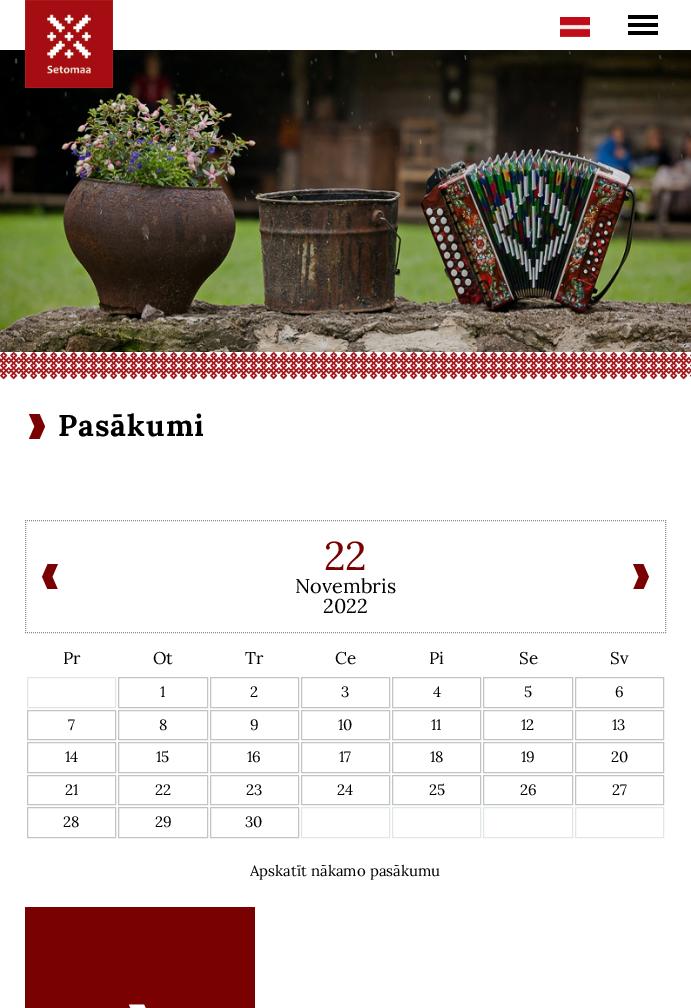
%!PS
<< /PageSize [691 1008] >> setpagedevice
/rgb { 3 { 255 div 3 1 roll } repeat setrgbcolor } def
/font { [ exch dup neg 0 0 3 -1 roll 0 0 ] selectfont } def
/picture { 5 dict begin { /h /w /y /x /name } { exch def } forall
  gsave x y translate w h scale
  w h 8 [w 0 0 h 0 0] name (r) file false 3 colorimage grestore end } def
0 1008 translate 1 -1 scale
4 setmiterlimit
255 255 255 rgb
0 0 691 1008 rectfill
(img/3.rgb) 0 50 691 302 picture
(img/4.rgb) 12 56 679 296 picture
(img/1.rgb) 25 0 88 88 picture
(img/2.rgb) 560 17 30 20 picture
[
  [628 15 30 4 0 0 0]
  [628 23 30 4 0 0 0]
  [628 31 30 4 0 0 0]
] { aload pop rgb rectfill } forall
(img/5.rgb) 0 352 691 27 picture
121 1 1 rgb
29 414 moveto 34.5 426.5 lineto 29 439 lineto 39.5 439 lineto 45 426.5 lineto 39.5 414 lineto closepath fill
136 136 137 rgb
[1 1] 0 setdash
25 520.5 moveto 666 520.5 lineto stroke
665.5 520 moveto 665.5 633 lineto stroke
25 632.5 moveto 666 632.5 lineto stroke
25.5 520 moveto 25.5 633 lineto stroke
(img/6.rgb) 42 564 16 25 picture
(img/7.rgb) 633 564 16 25 picture
225 230 233 rgb
[] 0 setdash
27.5 677.5 88 30 rectstroke
193 195 196 rgb
118.5 677.5 89 30 rectstroke
210.5 677.5 88 30 rectstroke
301.5 677.5 88 30 rectstroke
392.5 677.5 88 30 rectstroke
483.5 677.5 89 30 rectstroke
575.5 677.5 88 30 rectstroke
27.5 710.5 88 29 rectstroke
118.5 710.5 89 29 rectstroke
210.5 710.5 88 29 rectstroke
301.5 710.5 88 29 rectstroke
392.5 710.5 88 29 rectstroke
483.5 710.5 89 29 rectstroke
575.5 710.5 88 29 rectstroke
27.5 742.5 88 30 rectstroke
118.5 742.5 89 30 rectstroke
210.5 742.5 88 30 rectstroke
301.5 742.5 88 30 rectstroke
392.5 742.5 88 30 rectstroke
483.5 742.5 89 30 rectstroke
575.5 742.5 88 30 rectstroke
27.5 775.5 88 29 rectstroke
118.5 775.5 89 29 rectstroke
210.5 775.5 88 29 rectstroke
301.5 775.5 88 29 rectstroke
392.5 775.5 88 29 rectstroke
483.5 775.5 89 29 rectstroke
575.5 775.5 88 29 rectstroke
27.5 807.5 88 30 rectstroke
118.5 807.5 89 30 rectstroke
210.5 807.5 88 30 rectstroke
225 230 233 rgb
301.5 807.5 88 30 rectstroke
392.5 807.5 88 30 rectstroke
483.5 807.5 89 30 rectstroke
575.5 807.5 88 30 rectstroke
121 1 1 rgb
25 907 230 101 rectfill
255 255 255 rgb
129 1004.5 moveto 137 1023 lineto 129.5 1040.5 lineto 144.5 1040.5 lineto 152 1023 lineto 144 1004.5 lineto closepath fill
/Lora-Bold 30 font
0 0 0 rgb
58 436 moveto 1 0 (Pasākumi) ashow
/Lora-Regular 40 font
121 1 1 rgb
324 570 moveto (22) show
/Lora-Regular 20 font
0 0 0 rgb
295 593 moveto (Novembris) show
323 613 moveto (2022) show
/Lora-Regular 17 font
[
  [(Pr) 63 664]
  [(Ot) 153 664]
  [(Tr) 245 664]
  [(Ce) 335 664]
  [(Pi) 429 664]
  [(Se) 519 664]
  [(Sv) 610 664]
] { aload pop moveto show } forall
/Lora-Regular 15 font
[
  [(1) 160 697]
  [(2) 250 697]
  [(3) 341 697]
  [(4) 433 697]
  [(5) 524 697]
  [(6) 615 697]
  [(7) 68 730]
  [(8) 159 730]
  [(9) 250 730]
  [(10) 338 730]
  [(11) 431 730]
  [(12) 521 730]
  [(13) 612 730]
  [(14) 65 762]
  [(15) 156 762]
  [(16) 247 762]
  [(17) 339 762]
  [(18) 430 762]
  [(19) 521 762]
  [(20) 611 762]
  [(21) 65 795]
  [(22) 155 795]
  [(23) 246 795]
  [(24) 337 795]
  [(25) 429 795]
  [(26) 520 795]
  [(27) 612 795]
  [(28) 63 827]
  [(29) 155 827]
  [(30) 245 827]
  [(Apskatīt nākamo pasākumu) 250 876]
] { aload pop moveto show } forall
showpage
